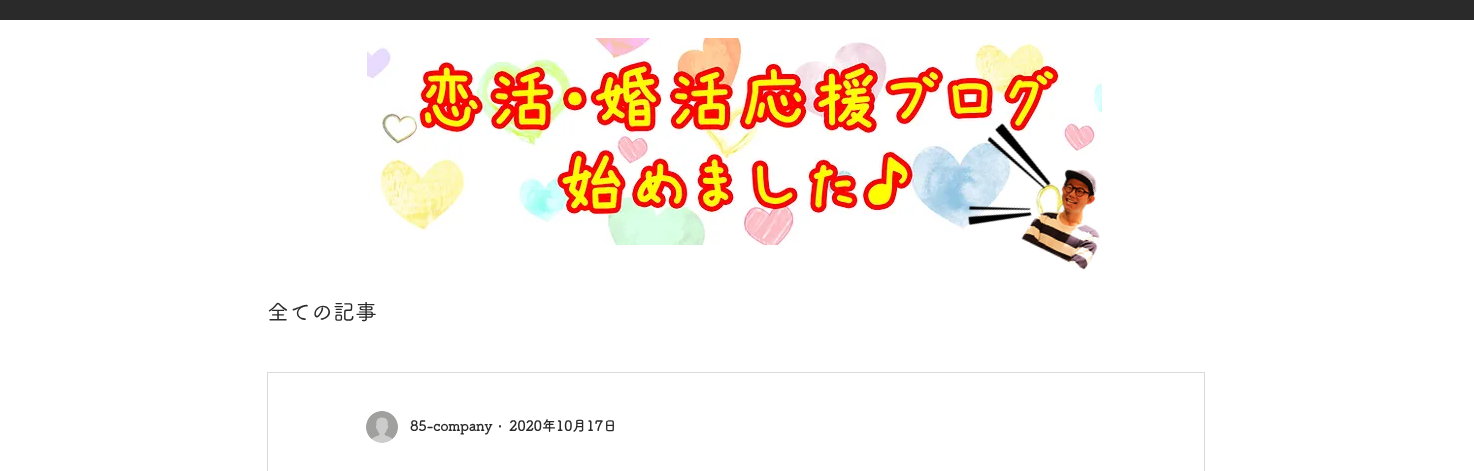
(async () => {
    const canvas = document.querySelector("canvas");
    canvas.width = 1474;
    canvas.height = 471;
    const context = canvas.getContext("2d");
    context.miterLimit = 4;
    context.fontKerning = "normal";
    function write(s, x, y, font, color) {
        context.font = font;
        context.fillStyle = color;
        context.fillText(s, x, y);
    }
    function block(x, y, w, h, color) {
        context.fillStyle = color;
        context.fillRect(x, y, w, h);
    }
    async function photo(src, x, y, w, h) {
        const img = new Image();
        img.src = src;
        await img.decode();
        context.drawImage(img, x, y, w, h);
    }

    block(0, 0, 1474, 471, "rgb(255, 255, 255)");
    block(0, 0, 1474, 20, "rgb(42, 42, 42)");
    await photo("media/1.png", 367, 38, 735, 207);
    await photo("media/2.png", 968, 123, 132, 147);
    write("全ての記事", 267, 320, "500 22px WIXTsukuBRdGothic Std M", "rgb(42, 42, 42)");
    context.strokeStyle = "rgb(217, 217, 217)";
    context.strokeRect(267.5, 372.5, 937, 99);
    await photo("media/3.png", 366, 411, 32, 32);
    write("85-company", 410, 431, "bold 14px WIXTsukuBRdGothic Std M", "rgb(42, 42, 42)");
    write("·", 498, 431, "bold 14px Liberation Sans", "rgb(42, 42, 42)");
    write("2020年10月17日", 509, 431, "bold 14px WIXTsukuBRdGothic Std M", "rgb(42, 42, 42)");
})();
